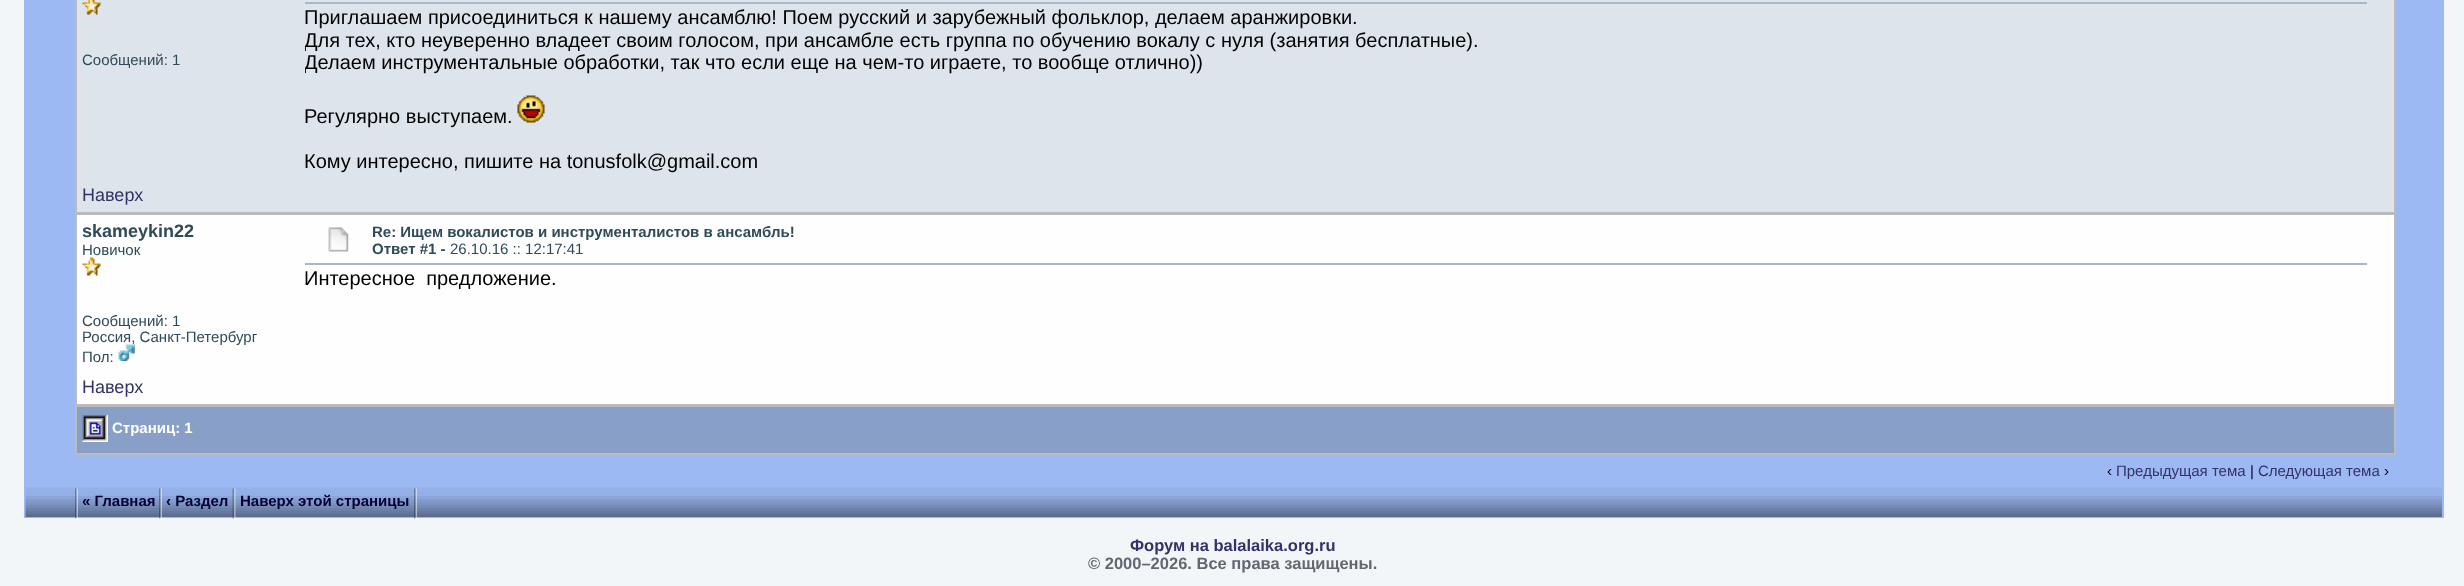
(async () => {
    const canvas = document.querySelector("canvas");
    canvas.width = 2464;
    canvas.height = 586;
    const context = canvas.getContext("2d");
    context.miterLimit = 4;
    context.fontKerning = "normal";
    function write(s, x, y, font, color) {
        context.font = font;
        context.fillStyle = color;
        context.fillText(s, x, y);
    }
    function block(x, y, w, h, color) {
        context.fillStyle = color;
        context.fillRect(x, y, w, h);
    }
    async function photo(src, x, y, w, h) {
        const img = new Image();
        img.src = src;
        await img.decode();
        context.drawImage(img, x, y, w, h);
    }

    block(0, 0, 2464, 586, "rgb(242, 246, 249)");
    block(24, 0, 2420, 518, "rgb(156, 185, 243)");
    block(75, 0, 2321, 455, "rgb(187, 187, 187)");
    block(77, 0, 2317, 179, "rgb(222, 228, 236)");
    await photo("media/1.png", 82, 0, 19, 15);
    write("Сообщений: 1", 82, 65, "15px Liberation Sans", "rgb(48, 75, 88)");
    block(305, 2, 2062, 2, "rgb(167, 184, 204)");
    write("Приглашаем присоединиться к нашему ансамблю! Поем русский и зарубежный фольклор, делаем аранжировки.", 304, 24, "20px Liberation Sans", "rgb(0, 0, 0)");
    context.save();
    context.beginPath();
    context.rect(305, 6, 2062, 167);
    context.clip();
    write("Для тех, кто неуверенно владеет своим голосом, при ансамбле есть группа по обучению вокалу с нуля (занятия бесплатные).", 304, 47, "20px Liberation Sans", "rgb(0, 0, 0)");
    write("Делаем инструментальные обработки, так что если еще на чем-то играете, то вообще отлично))", 304, 69, "20px Liberation Sans", "rgb(0, 0, 0)");
    context.restore();
    write("Регулярно выступаем.", 304, 123, "20px Liberation Sans", "rgb(0, 0, 0)");
    await photo("media/2.png", 517, 95, 28, 28);
    write("Кому интересно, пишите на tonusfolk@gmail.com", 304, 168, "20px Liberation Sans", "rgb(0, 0, 0)");
    block(77, 179, 2317, 33, "rgb(222, 228, 236)");
    write("Наверх", 82, 201, "18px Liberation Sans", "rgb(51, 51, 102)");
    block(77, 215, 2317, 156, "rgb(254, 254, 254)");
    write("skameykin22", 82, 237, "bold 18px Liberation Sans", "rgb(48, 75, 88)");
    write("Новичок", 82, 255, "15px Liberation Sans", "rgb(48, 75, 88)");
    await photo("media/3.png", 82, 257, 19, 19);
    write("Сообщений: 1", 82, 326, "15px Liberation Sans", "rgb(48, 75, 88)");
    write("Россия, Санкт-Петербург", 82, 342, "15px Liberation Sans", "rgb(48, 75, 88)");
    write("Пол:", 82, 362, "15px Liberation Sans", "rgb(48, 75, 88)");
    await photo("media/4.png", 118, 344, 17, 17);
    block(305, 263, 2062, 2, "rgb(167, 184, 204)");
    await photo("media/5.png", 328, 227, 21, 25);
    write("Re: Ищем вокалистов и инструменталистов в ансамбль!", 372, 237, "bold 15px Liberation Sans", "rgb(48, 75, 88)");
    write("Ответ #1 -", 372, 254, "bold 15px Liberation Sans", "rgb(48, 75, 88)");
    write("26.10.16 :: 12:17:41", 450, 254, "15px Liberation Sans", "rgb(48, 75, 88)");
    write("Интересное  предложение.", 304, 285, "20px Liberation Sans", "rgb(0, 0, 0)");
    block(77, 371, 2317, 33, "rgb(254, 254, 254)");
    write("Наверх", 82, 393, "18px Liberation Sans", "rgb(51, 51, 102)");
    block(77, 407, 2317, 46, "rgb(136, 160, 200)");
    await photo("media/6.png", 82, 415, 26, 27);
    write("Страниц: 1", 112, 433, "bold 15px Liberation Sans", "rgb(255, 255, 255)");
    write("‹", 2107, 476, "15px Liberation Sans", "rgb(0, 0, 51)");
    write("Предыдущая тема", 2116, 476, "15px Liberation Sans", "rgb(51, 51, 102)");
    write("|", 2250, 476, "15px Liberation Sans", "rgb(0, 0, 51)");
    write("Следующая тема", 2258, 476, "15px Liberation Sans", "rgb(51, 51, 102)");
    write("›", 2384, 476, "15px Liberation Sans", "rgb(0, 0, 51)");
    await photo("media/7.png", 25, 487, 2417, 30);
    await photo("media/8.png", 75, 488, 3, 32);
    write("« Главная", 82, 506, "bold 15px Liberation Sans", "rgb(0, 0, 51)");
    await photo("media/8.png", 159, 488, 3, 32);
    write("‹ Раздел", 166, 506, "bold 15px Liberation Sans", "rgb(0, 0, 51)");
    await photo("media/9.png", 232, 488, 4, 32);
    write("Наверх этой страницы", 240, 506, "bold 15px Liberation Sans", "rgb(0, 0, 51)");
    await photo("media/10.png", 414, 488, 3, 32);
    write("Форум на balalaika.org.ru", 1130, 551, "bold 16.5px Liberation Sans", "rgb(51, 51, 102)");
    write("© 2000–2026. Все права защищены.", 1088, 569, "bold 16.5px Liberation Sans", "rgb(98, 104, 111)");
})();
